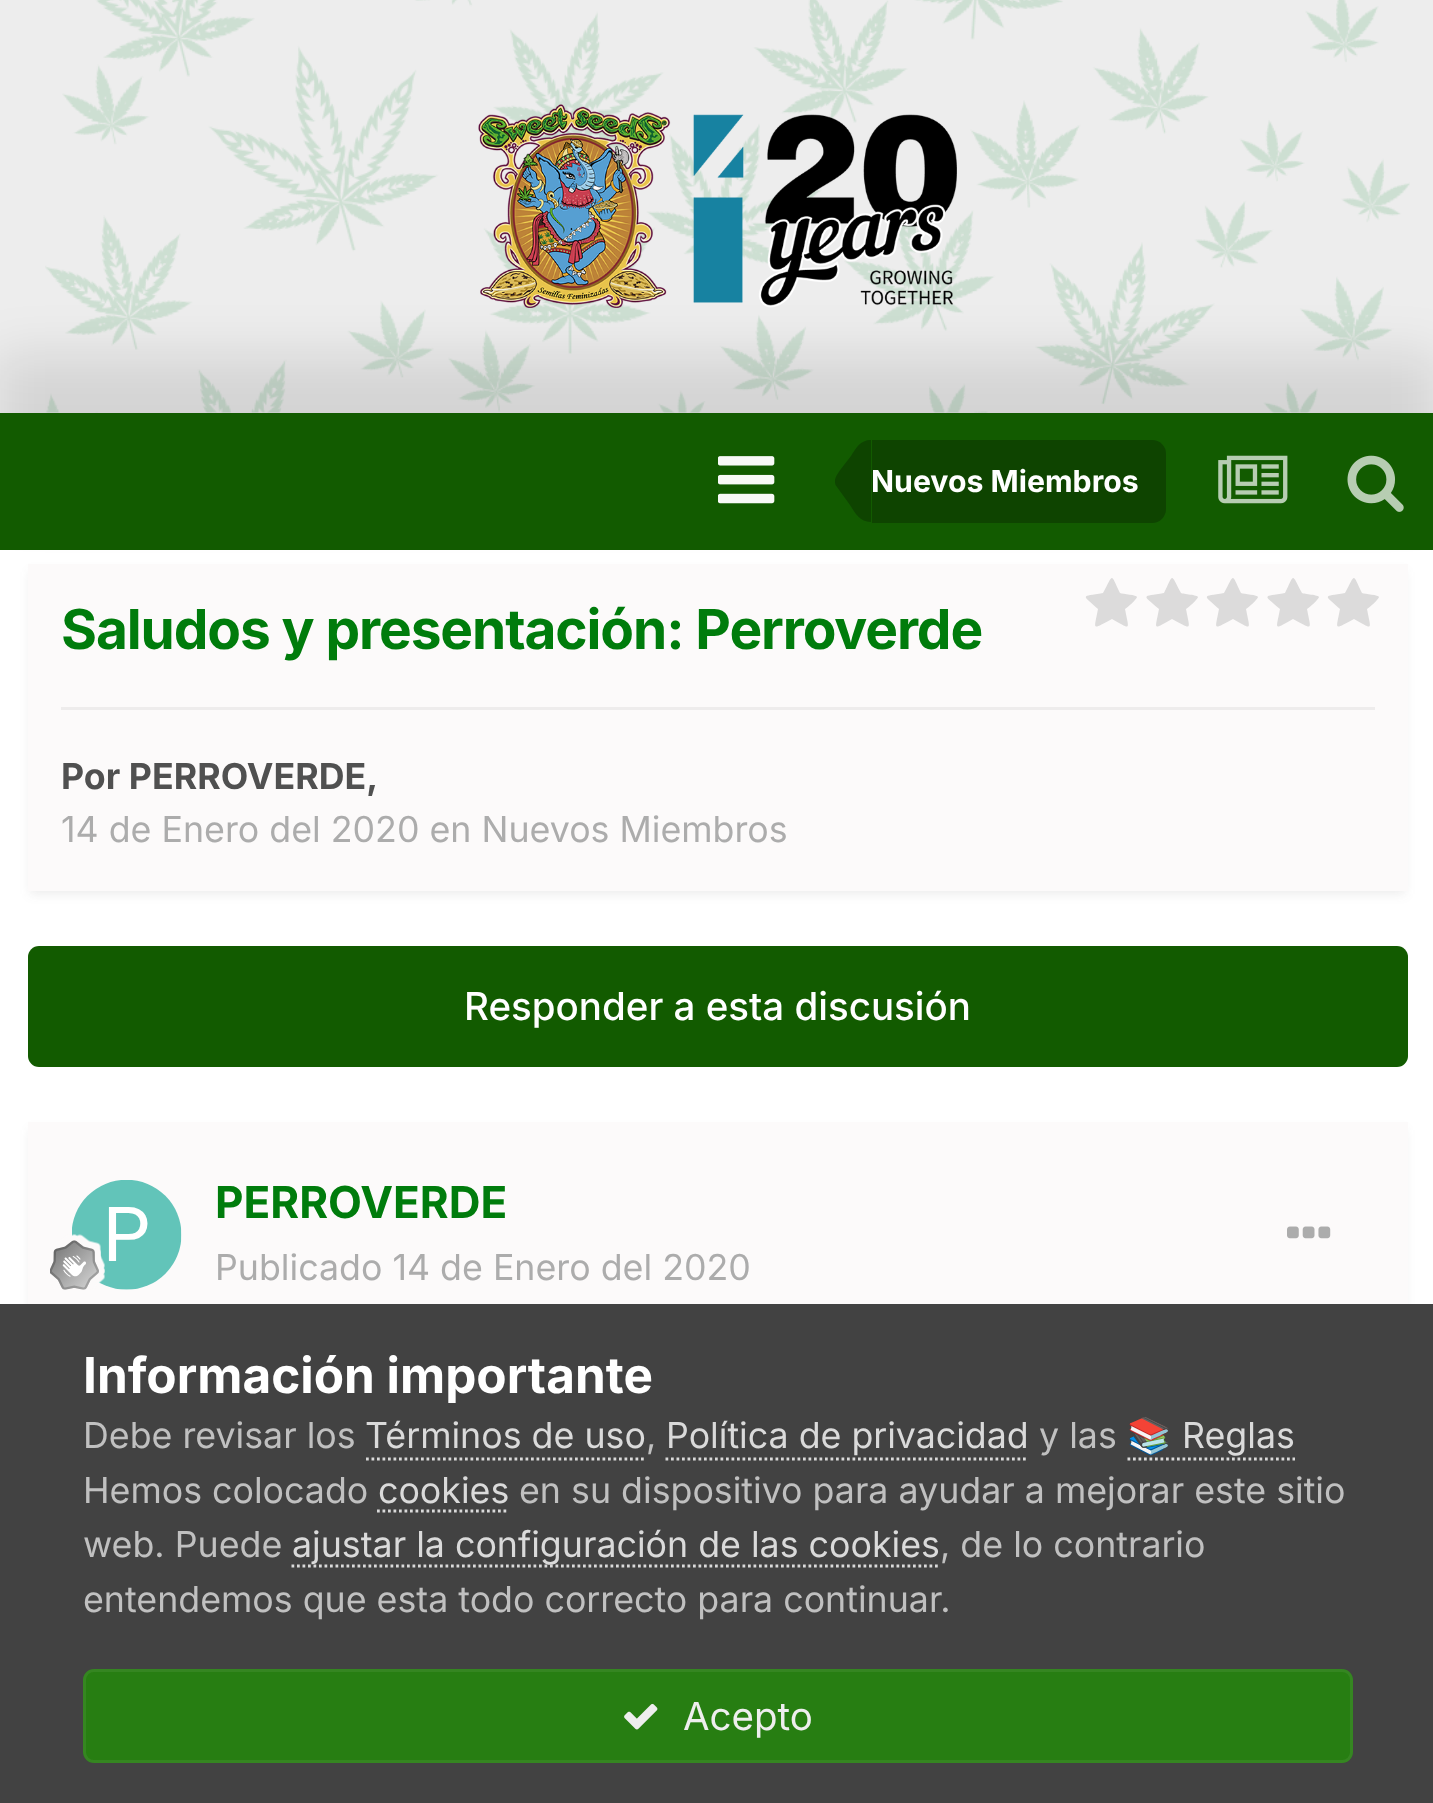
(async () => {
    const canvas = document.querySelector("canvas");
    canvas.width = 1433;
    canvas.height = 1803;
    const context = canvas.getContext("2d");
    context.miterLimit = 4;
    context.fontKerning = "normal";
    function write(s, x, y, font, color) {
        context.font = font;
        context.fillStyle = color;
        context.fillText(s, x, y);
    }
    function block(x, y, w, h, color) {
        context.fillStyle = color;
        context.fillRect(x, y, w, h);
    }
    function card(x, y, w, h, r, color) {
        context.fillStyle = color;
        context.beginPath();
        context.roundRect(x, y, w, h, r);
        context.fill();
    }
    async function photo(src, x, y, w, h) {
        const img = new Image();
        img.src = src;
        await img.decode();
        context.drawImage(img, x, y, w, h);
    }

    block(0, 0, 1433, 1803, "rgb(237, 237, 237)");
    await photo("media/1.png", 45, 0, 1365, 413);
    await photo("media/2.png", 478, 104, 479, 204);
    block(0, 550, 1433, 754, "rgb(255, 255, 255)");
    context.fillStyle = "rgba(66, 66, 66, 0.1)";
    context.filter = "blur(5.5px)";
    context.beginPath();
    context.rect(30, 572, 1375, 322);
    context.fill();
    context.filter = "none";
    block(28, 564, 1380, 327, "rgb(252, 250, 250)");
    context.fillStyle = "rgb(220, 219, 219)";
    context.beginPath();
    context.moveTo(1137, 597);
    context.bezierCurveTo(1137, 599, 1127, 608, 1125, 609);
    context.bezierCurveTo(1129, 631, 1132, 630, 1112, 619);
    context.bezierCurveTo(1091, 630, 1094, 631, 1098, 609);
    context.bezierCurveTo(1082, 594, 1080, 597, 1103, 593);
    context.bezierCurveTo(1114, 573, 1110, 573, 1120, 593);
    context.bezierCurveTo(1123, 594, 1137, 595, 1137, 597);
    context.closePath();
    context.fill();
    context.beginPath();
    context.moveTo(1198, 597);
    context.bezierCurveTo(1198, 599, 1188, 608, 1186, 609);
    context.bezierCurveTo(1190, 631, 1193, 630, 1172, 619);
    context.bezierCurveTo(1152, 630, 1155, 631, 1159, 609);
    context.bezierCurveTo(1142, 594, 1141, 597, 1164, 593);
    context.bezierCurveTo(1174, 573, 1170, 573, 1181, 593);
    context.bezierCurveTo(1183, 594, 1198, 595, 1198, 597);
    context.closePath();
    context.fill();
    context.beginPath();
    context.moveTo(1258, 597);
    context.bezierCurveTo(1258, 599, 1248, 608, 1246, 609);
    context.bezierCurveTo(1250, 631, 1253, 630, 1233, 619);
    context.bezierCurveTo(1212, 630, 1215, 631, 1219, 609);
    context.bezierCurveTo(1203, 594, 1201, 597, 1224, 593);
    context.bezierCurveTo(1235, 573, 1231, 573, 1241, 593);
    context.bezierCurveTo(1244, 594, 1258, 595, 1258, 597);
    context.closePath();
    context.fill();
    context.beginPath();
    context.moveTo(1319, 597);
    context.bezierCurveTo(1319, 599, 1309, 608, 1307, 609);
    context.bezierCurveTo(1311, 631, 1314, 630, 1293, 619);
    context.bezierCurveTo(1273, 630, 1276, 631, 1280, 609);
    context.bezierCurveTo(1263, 594, 1262, 597, 1285, 593);
    context.bezierCurveTo(1295, 573, 1291, 573, 1302, 593);
    context.bezierCurveTo(1304, 594, 1319, 595, 1319, 597);
    context.closePath();
    context.fill();
    context.beginPath();
    context.moveTo(1379, 597);
    context.bezierCurveTo(1379, 599, 1369, 608, 1367, 609);
    context.bezierCurveTo(1371, 631, 1374, 630, 1354, 619);
    context.bezierCurveTo(1333, 630, 1336, 631, 1340, 609);
    context.bezierCurveTo(1324, 594, 1322, 597, 1345, 593);
    context.bezierCurveTo(1356, 573, 1352, 573, 1362, 593);
    context.bezierCurveTo(1365, 594, 1379, 595, 1379, 597);
    context.closePath();
    context.fill();
    context.fillStyle = "rgba(0, 0, 0, 0.1)";
    context.filter = "blur(26px)";
    context.beginPath();
    context.rect(-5, 355, 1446, 148);
    context.fill();
    context.filter = "none";
    block(0, 413, 1433, 137, "rgb(18, 91, 0)");
    await photo("media/3.png", 718, 456, 57, 48);
    context.fillStyle = "rgb(14, 68, 0)";
    context.beginPath();
    context.roundRect(872, 440, 294, 83, [0, 14, 14, 0]);
    context.fill();
    context.beginPath();
    context.moveTo(850, 505);
    context.lineTo(837, 487);
    context.bezierCurveTo(835, 485, 835, 483, 835, 481);
    context.lineTo(871, 481);
    context.lineTo(871, 522);
    context.bezierCurveTo(860, 522, 855, 513, 850, 505);
    context.closePath();
    context.fill();
    context.beginPath();
    context.moveTo(871, 440);
    context.lineTo(871, 481);
    context.lineTo(835, 481);
    context.bezierCurveTo(835, 476, 841, 469, 844, 465);
    context.lineTo(851, 456);
    context.bezierCurveTo(856, 448, 860, 440, 871, 440);
    context.closePath();
    context.fill();
    write("Nuevos Miembros", 871, 492, "bold 30.25px Inter", "rgb(255, 255, 255)");
    await photo("media/4.png", 1218, 455, 70, 49);
    await photo("media/5.png", 1347, 455, 57, 57);
    context.letterSpacing = "-1.1px";
    write("Saludos y presentación: Perroverde", 61, 649, "bold 55px Inter", "rgb(0, 124, 12)");
    block(61, 707, 1314, 3, "rgb(238, 236, 236)");
    context.letterSpacing = "0px";
    write("Por PERROVERDE,", 61, 789, "bold 35.75px Inter", "rgb(80, 80, 80)");
    write("14 de Enero del 2020 en Nuevos Miembros", 61, 842, "35.75px Inter", "rgb(172, 172, 172)");
    card(28, 946, 1380, 121, 11, "rgb(18, 91, 0)");
    write("Responder a esta discusión", 464, 1020, "500 38.5px Inter", "rgb(255, 255, 255)");
    context.fillStyle = "rgba(66, 66, 66, 0.1)";
    context.filter = "blur(5.5px)";
    context.beginPath();
    context.rect(30, 1130, 1375, 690);
    context.fill();
    context.filter = "none";
    block(28, 1122, 1380, 182, "rgb(252, 250, 250)");
    await photo("media/6.png", 72, 1180, 110, 110);
    await photo("media/7.png", 50, 1234, 55, 56);
    write("PERROVERDE", 215, 1218, "bold 44px Inter", "rgb(0, 124, 12)");
    write("Publicado 14 de Enero del 2020", 215, 1280, "35.75px Inter", "rgb(172, 172, 172)");
    await photo("media/8.png", 1287, 1226, 44, 13);
    block(0, 1304, 1433, 499, "rgb(66, 66, 66)");
    write("Información importante", 83, 1393, "bold 49.5px Inter", "rgb(255, 255, 255)");
    write("Debe revisar los", 83, 1448, "35.75px Inter", "rgb(192, 192, 192)");
    write("Términos de uso", 365, 1448, "35.75px Inter", "rgb(218, 218, 218)");
    context.beginPath();
    context.moveTo(366, 1459);
    context.lineTo(646, 1459);
    context.strokeStyle = "rgb(218, 218, 218)";
    context.lineWidth = 2.8;
    context.setLineDash([2.75, 2.75]);
    context.stroke();
    write(",", 646, 1448, "35.75px Inter", "rgb(192, 192, 192)");
    write("Política de privacidad", 666, 1448, "35.75px Inter", "rgb(218, 218, 218)");
    context.beginPath();
    context.moveTo(665.5, 1459);
    context.lineTo(1028.5, 1459);
    context.stroke();
    write("y las", 1039, 1448, "35.75px Inter", "rgb(192, 192, 192)");
    write("📚", 1127, 1448, "35.75px Noto Color Emoji", "rgb(218, 218, 218)");
    write("Reglas", 1182, 1448, "35.75px Inter", "rgb(218, 218, 218)");
    context.beginPath();
    context.moveTo(1127.5, 1459);
    context.lineTo(1295, 1459);
    context.stroke();
    write("Hemos colocado", 83, 1503, "35.75px Inter", "rgb(192, 192, 192)");
    write("cookies", 378, 1503, "35.75px Inter", "rgb(218, 218, 218)");
    context.beginPath();
    context.moveTo(377, 1511);
    context.lineTo(509, 1511);
    context.stroke();
    write("en su dispositivo para ayudar a mejorar este sitio", 519, 1503, "35.75px Inter", "rgb(192, 192, 192)");
    write("web. Puede", 83, 1557, "35.75px Inter", "rgb(192, 192, 192)");
    context.beginPath();
    context.moveTo(291.5, 1566);
    context.lineTo(940.5, 1566);
    context.stroke();
    write("ajustar la configuración de las cookies", 292, 1557, "35.75px Inter", "rgb(218, 218, 218)");
    write(", de lo contrario", 940, 1557, "35.75px Inter", "rgb(192, 192, 192)");
    write("entendemos que esta todo correcto para continuar.", 83, 1612, "35.75px Inter", "rgb(192, 192, 192)");
    card(83, 1669, 1270, 94, 11, "rgb(39, 126, 18)");
    context.beginPath();
    context.roundRect(84.5, 1670.5, 1267, 91, 9.5);
    context.strokeStyle = "rgba(238, 238, 238, 0.07)";
    context.lineWidth = 3;
    context.setLineDash([]);
    context.stroke();
    await photo("media/9.png", 624, 1703, 34, 27);
    write("Acepto", 683, 1730, "38.5px Inter", "rgb(238, 238, 238)");
})();
